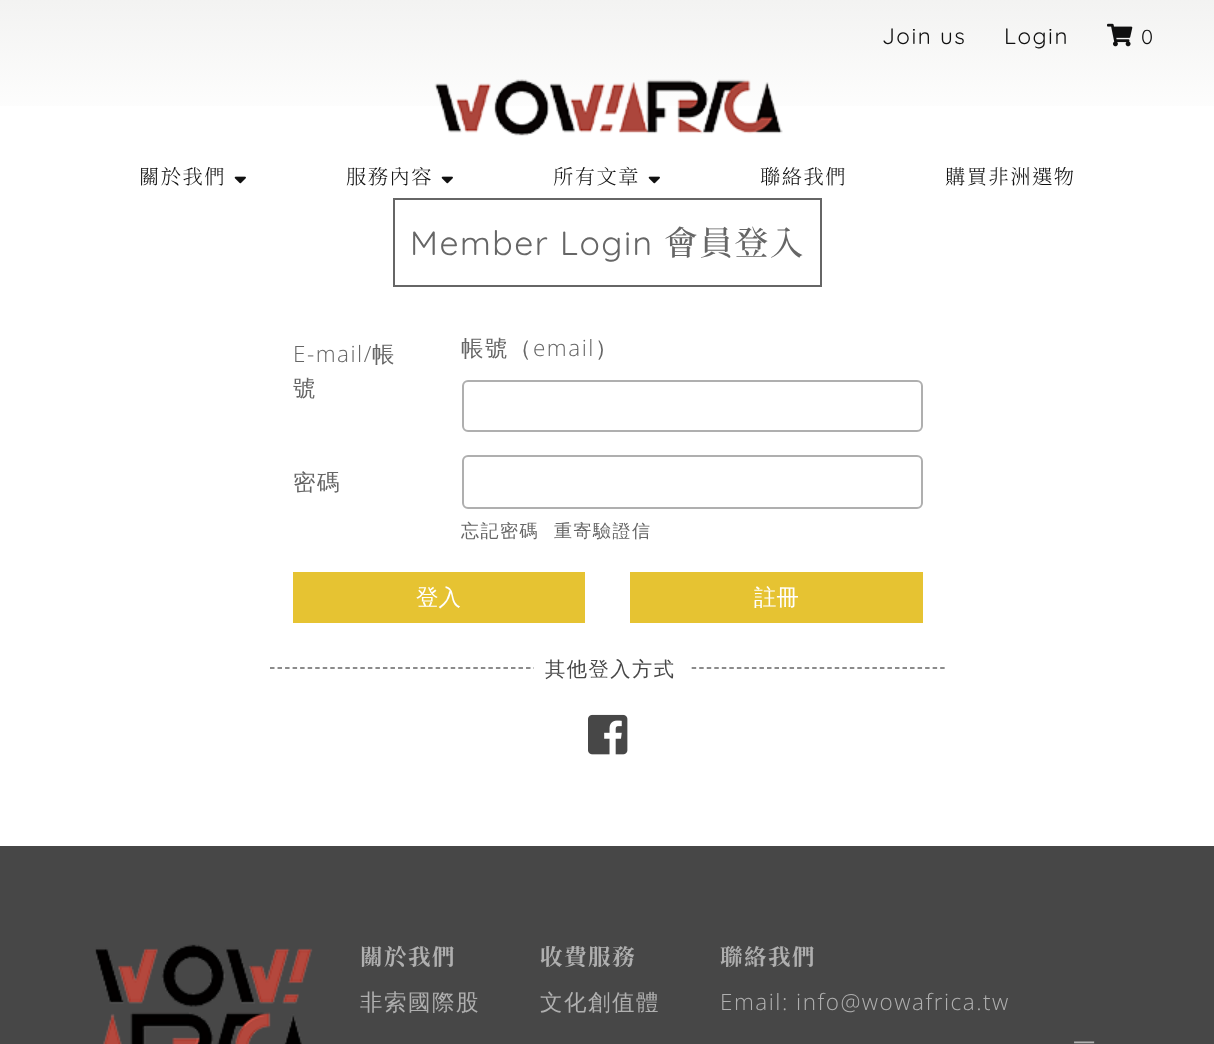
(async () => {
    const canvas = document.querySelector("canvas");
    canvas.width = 1214;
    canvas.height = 1044;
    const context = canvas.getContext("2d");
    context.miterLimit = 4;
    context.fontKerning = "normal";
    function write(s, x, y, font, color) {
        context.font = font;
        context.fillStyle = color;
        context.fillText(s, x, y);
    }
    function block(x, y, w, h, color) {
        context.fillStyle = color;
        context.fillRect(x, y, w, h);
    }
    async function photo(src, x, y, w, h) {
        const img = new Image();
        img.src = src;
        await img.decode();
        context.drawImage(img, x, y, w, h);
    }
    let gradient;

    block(0, 0, 1214, 1044, "rgb(255, 255, 255)");
    gradient = context.createLinearGradient(608, -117, 608, 131);
    gradient.addColorStop(0, "rgb(232, 232, 230)");
    gradient.addColorStop(1, "rgb(255, 255, 255)");
    context.fillStyle = gradient;
    context.fillRect(0, 0, 1214, 106);
    context.letterSpacing = "1.5px";
    write("Join us", 882, 44, "300 22.5px Quicksand", "rgb(16, 16, 16)");
    write("Login", 1004, 44, "300 22.5px Quicksand", "rgb(16, 16, 16)");
    await photo("media/1.png", 1107, 23, 26, 24);
    write("0", 1141, 44, "300 20.25px Quicksand", "rgb(16, 16, 16)");
    await photo("media/2.png", 434, 79, 349, 57);
    write("關於我們", 139, 184, "300 20.25px Noto Serif TC", "rgb(16, 16, 16)");
    await photo("media/3.png", 234, 176, 12, 8);
    write("服務內容", 346, 184, "300 20.25px Noto Serif TC", "rgb(16, 16, 16)");
    await photo("media/3.png", 441, 176, 12, 8);
    write("所有文章", 553, 184, "300 20.25px Noto Serif TC", "rgb(16, 16, 16)");
    await photo("media/3.png", 648, 176, 12, 8);
    write("聯絡我們", 760, 184, "300 20.25px Noto Serif TC", "rgb(16, 16, 16)");
    write("購買非洲選物", 945, 184, "300 20.25px Noto Serif TC", "rgb(16, 16, 16)");
    context.strokeStyle = "rgb(102, 102, 102)";
    context.lineWidth = 2;
    context.strokeRect(394, 199, 427, 87);
    write("Member Login", 410, 255, "300 33.75px Quicksand", "rgb(102, 102, 102)");
    write("會員登入", 664, 255, "500 33.75px Noto Serif TC", "rgb(102, 102, 102)");
    write("E-mail/", 293, 362, "300 22.5px Open Sans", "rgb(102, 102, 102)");
    write("帳", 372, 362, "500 22.5px WenQuanYi Zen Hei", "rgb(102, 102, 102)");
    write("號", 293, 396, "500 22.5px WenQuanYi Zen Hei", "rgb(102, 102, 102)");
    write("帳號（", 461, 356, "500 22.5px WenQuanYi Zen Hei", "rgb(102, 102, 102)");
    write("email", 533, 356, "300 22.5px Open Sans", "rgb(102, 102, 102)");
    write("）", 595, 356, "500 22.5px WenQuanYi Zen Hei", "rgb(102, 102, 102)");
    context.beginPath();
    context.roundRect(463, 381, 459, 50, 5);
    context.strokeStyle = "rgb(175, 175, 175)";
    context.stroke();
    write("密碼", 293, 490, "500 22.5px WenQuanYi Zen Hei", "rgb(102, 102, 102)");
    context.beginPath();
    context.roundRect(463, 456, 459, 52, 5);
    context.stroke();
    write("忘記密碼", 461, 537, "500 18px WenQuanYi Zen Hei", "rgb(102, 102, 102)");
    write("重寄驗證信", 554, 537, "500 18px WenQuanYi Zen Hei", "rgb(102, 102, 102)");
    block(293, 572, 292, 51, "rgb(230, 195, 50)");
    context.letterSpacing = "0px";
    write("登入", 416, 605, "500 22.5px WenQuanYi Zen Hei", "rgb(255, 255, 255)");
    block(630, 572, 293, 51, "rgb(230, 195, 50)");
    write("註冊", 754, 605, "500 22.5px WenQuanYi Zen Hei", "rgb(255, 255, 255)");
    context.beginPath();
    context.moveTo(270, 668);
    context.lineTo(945, 668);
    context.strokeStyle = "rgb(102, 102, 102)";
    context.lineWidth = 1.5;
    context.setLineDash([4.5, 3.03]);
    context.stroke();
    block(534, 667, 155, 2, "rgb(255, 255, 255)");
    context.letterSpacing = "1.5px";
    write("其他登入方式", 545, 676, "500 20.25px WenQuanYi Zen Hei", "rgb(71, 71, 71)");
    await photo("media/4.png", 588, 714, 40, 41);
    block(0, 846, 1214, 198, "rgb(71, 71, 71)");
    await photo("media/5.png", 95, 944, 218, 100);
    write("關於我們", 360, 965, "bold 22.5px Noto Serif TC", "rgb(175, 175, 175)");
    write("非索國際股", 360, 1010, "500 22.5px WenQuanYi Zen Hei", "rgb(175, 175, 175)");
    write("收費服務", 540, 965, "bold 22.5px Noto Serif TC", "rgb(175, 175, 175)");
    write("文化創值體", 540, 1010, "500 22.5px WenQuanYi Zen Hei", "rgb(175, 175, 175)");
    write("聯絡我們", 720, 965, "bold 22.5px Noto Serif TC", "rgb(175, 175, 175)");
    write("Email: info@wowafrica.tw", 720, 1010, "300 22.5px Open Sans", "rgb(175, 175, 175)");
    write("一", 1073, 1051, "500 22.5px WenQuanYi Zen Hei", "rgb(175, 175, 175)");
})();
